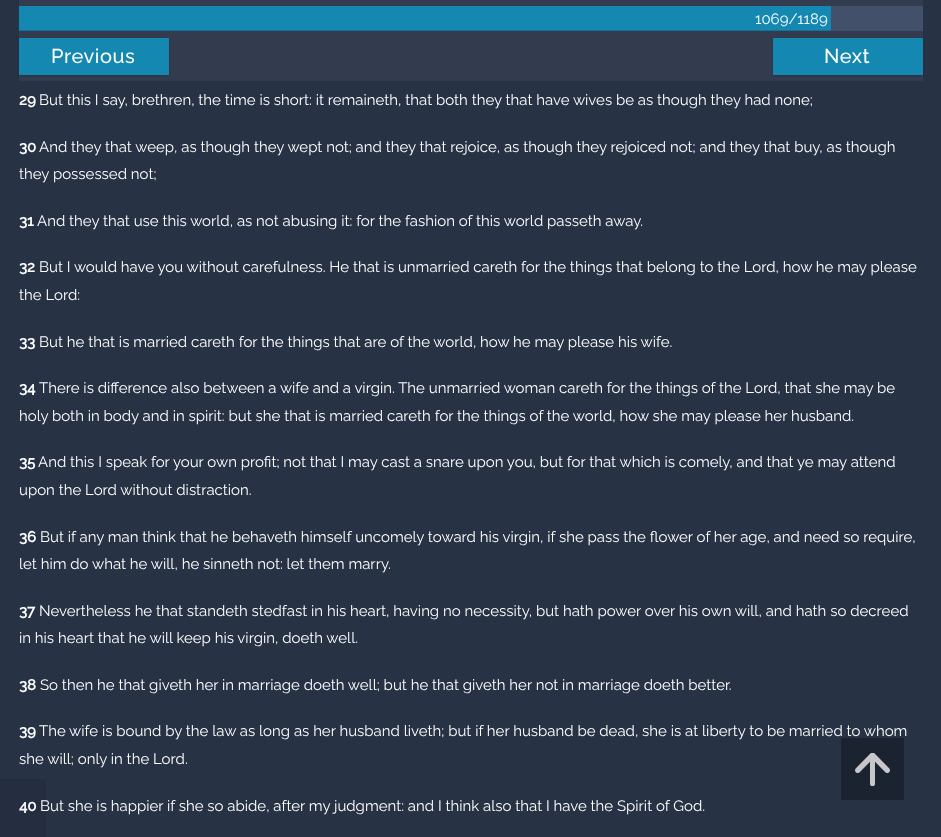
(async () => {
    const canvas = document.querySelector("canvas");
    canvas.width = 941;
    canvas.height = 837;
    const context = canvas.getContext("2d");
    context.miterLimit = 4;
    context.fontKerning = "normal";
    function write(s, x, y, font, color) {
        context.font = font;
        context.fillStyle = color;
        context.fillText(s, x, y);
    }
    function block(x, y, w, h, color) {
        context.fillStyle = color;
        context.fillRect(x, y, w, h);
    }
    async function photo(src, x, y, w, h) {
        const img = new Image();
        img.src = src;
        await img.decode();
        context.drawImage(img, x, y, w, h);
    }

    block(0, 0, 941, 837, "rgb(39, 50, 69)");
    block(0, 779, 46, 58, "rgb(37, 45, 64)");
    block(19, 0, 904, 81, "rgb(50, 60, 78)");
    block(831, 6, 92, 25, "rgb(67, 80, 105)");
    block(19, 6, 812, 24, "rgb(21, 136, 177)");
    block(19, 30, 812, 1, "rgb(18, 116, 150)");
    write("1069/1189", 755, 24, "15px Raleway", "rgb(255, 255, 255)");
    context.fillStyle = "rgba(0, 0, 0, 0.15)";
    context.filter = "blur(1px)";
    context.beginPath();
    context.rect(19, 39, 150, 37);
    context.fill();
    context.filter = "none";
    block(19, 38, 150, 37, "rgb(21, 136, 177)");
    context.letterSpacing = "0.5px";
    write("Previous", 51, 63, "500 20px Raleway", "rgb(255, 255, 255)");
    context.fillStyle = "rgba(0, 0, 0, 0.15)";
    context.filter = "blur(1px)";
    context.beginPath();
    context.rect(773, 39, 150, 37);
    context.fill();
    context.filter = "none";
    block(773, 38, 150, 37, "rgb(21, 136, 177)");
    write("Next", 824, 63, "500 20px Raleway", "rgb(255, 255, 255)");
    context.letterSpacing = "0px";
    write("29", 19, 105, "bold 15px Raleway", "rgb(255, 255, 255)");
    write("But this I say, brethren, the time is short: it remaineth, that both they that have wives be as though they had none;", 39, 105, "15px Raleway", "rgb(255, 255, 255)");
    write("30", 19, 152, "bold 15px Raleway", "rgb(255, 255, 255)");
    write("And they that weep, as though they wept not; and they that rejoice, as though they rejoiced not; and they that buy, as though", 39, 152, "15px Raleway", "rgb(255, 255, 255)");
    write("they possessed not;", 19, 179, "15px Raleway", "rgb(255, 255, 255)");
    write("31", 19, 226, "bold 15px Raleway", "rgb(255, 255, 255)");
    write("And they that use this world, as not abusing it: for the fashion of this world passeth away.", 37, 226, "15px Raleway", "rgb(255, 255, 255)");
    write("32", 19, 272, "bold 15px Raleway", "rgb(255, 255, 255)");
    write("But I would have you without carefulness. He that is unmarried careth for the things that belong to the Lord, how he may please", 39, 272, "15px Raleway", "rgb(255, 255, 255)");
    write("the Lord:", 19, 300, "15px Raleway", "rgb(255, 255, 255)");
    write("33", 19, 347, "bold 15px Raleway", "rgb(255, 255, 255)");
    write("But he that is married careth for the things that are of the world, how he may please his wife.", 39, 347, "15px Raleway", "rgb(255, 255, 255)");
    write("34", 19, 393, "bold 15px Raleway", "rgb(255, 255, 255)");
    write("There is difference also between a wife and a virgin. The unmarried woman careth for the things of the Lord, that she may be", 39, 393, "15px Raleway", "rgb(255, 255, 255)");
    write("holy both in body and in spirit: but she that is married careth for the things of the world, how she may please her husband.", 19, 421, "15px Raleway", "rgb(255, 255, 255)");
    write("35", 19, 467, "bold 15px Raleway", "rgb(255, 255, 255)");
    write("And this I speak for your own profit; not that I may cast a snare upon you, but for that which is comely, and that ye may attend", 38, 467, "15px Raleway", "rgb(255, 255, 255)");
    write("upon the Lord without distraction.", 19, 495, "15px Raleway", "rgb(255, 255, 255)");
    write("36", 19, 542, "bold 15px Raleway", "rgb(255, 255, 255)");
    write("But if any man think that he behaveth himself uncomely toward his virgin, if she pass the flower of her age, and need so require,", 40, 542, "15px Raleway", "rgb(255, 255, 255)");
    write("let him do what he will, he sinneth not: let them marry.", 19, 569, "15px Raleway", "rgb(255, 255, 255)");
    write("37", 19, 616, "bold 15px Raleway", "rgb(255, 255, 255)");
    write("Nevertheless he that standeth stedfast in his heart, having no necessity, but hath power over his own will, and hath so decreed", 39, 616, "15px Raleway", "rgb(255, 255, 255)");
    write("in his heart that he will keep his virgin, doeth well.", 19, 643, "15px Raleway", "rgb(255, 255, 255)");
    write("38", 19, 690, "bold 15px Raleway", "rgb(255, 255, 255)");
    write("So then he that giveth her in marriage doeth well; but he that giveth her not in marriage doeth better.", 40, 690, "15px Raleway", "rgb(255, 255, 255)");
    write("39", 19, 736, "bold 15px Raleway", "rgb(255, 255, 255)");
    write("The wife is bound by the law as long as her husband liveth; but if her husband be dead, she is at liberty to be married to whom", 39, 736, "15px Raleway", "rgb(255, 255, 255)");
    write("she will; only in the Lord.", 19, 764, "15px Raleway", "rgb(255, 255, 255)");
    write("40", 19, 811, "bold 15px Raleway", "rgb(255, 255, 255)");
    write("But she is happier if she so abide, after my judgment: and I think also that I have the Spirit of God.", 40, 811, "15px Raleway", "rgb(255, 255, 255)");
    block(841, 738, 63, 62, "rgb(27, 34, 48)");
    await photo("media/1.png", 855, 753, 35, 33);
})();
